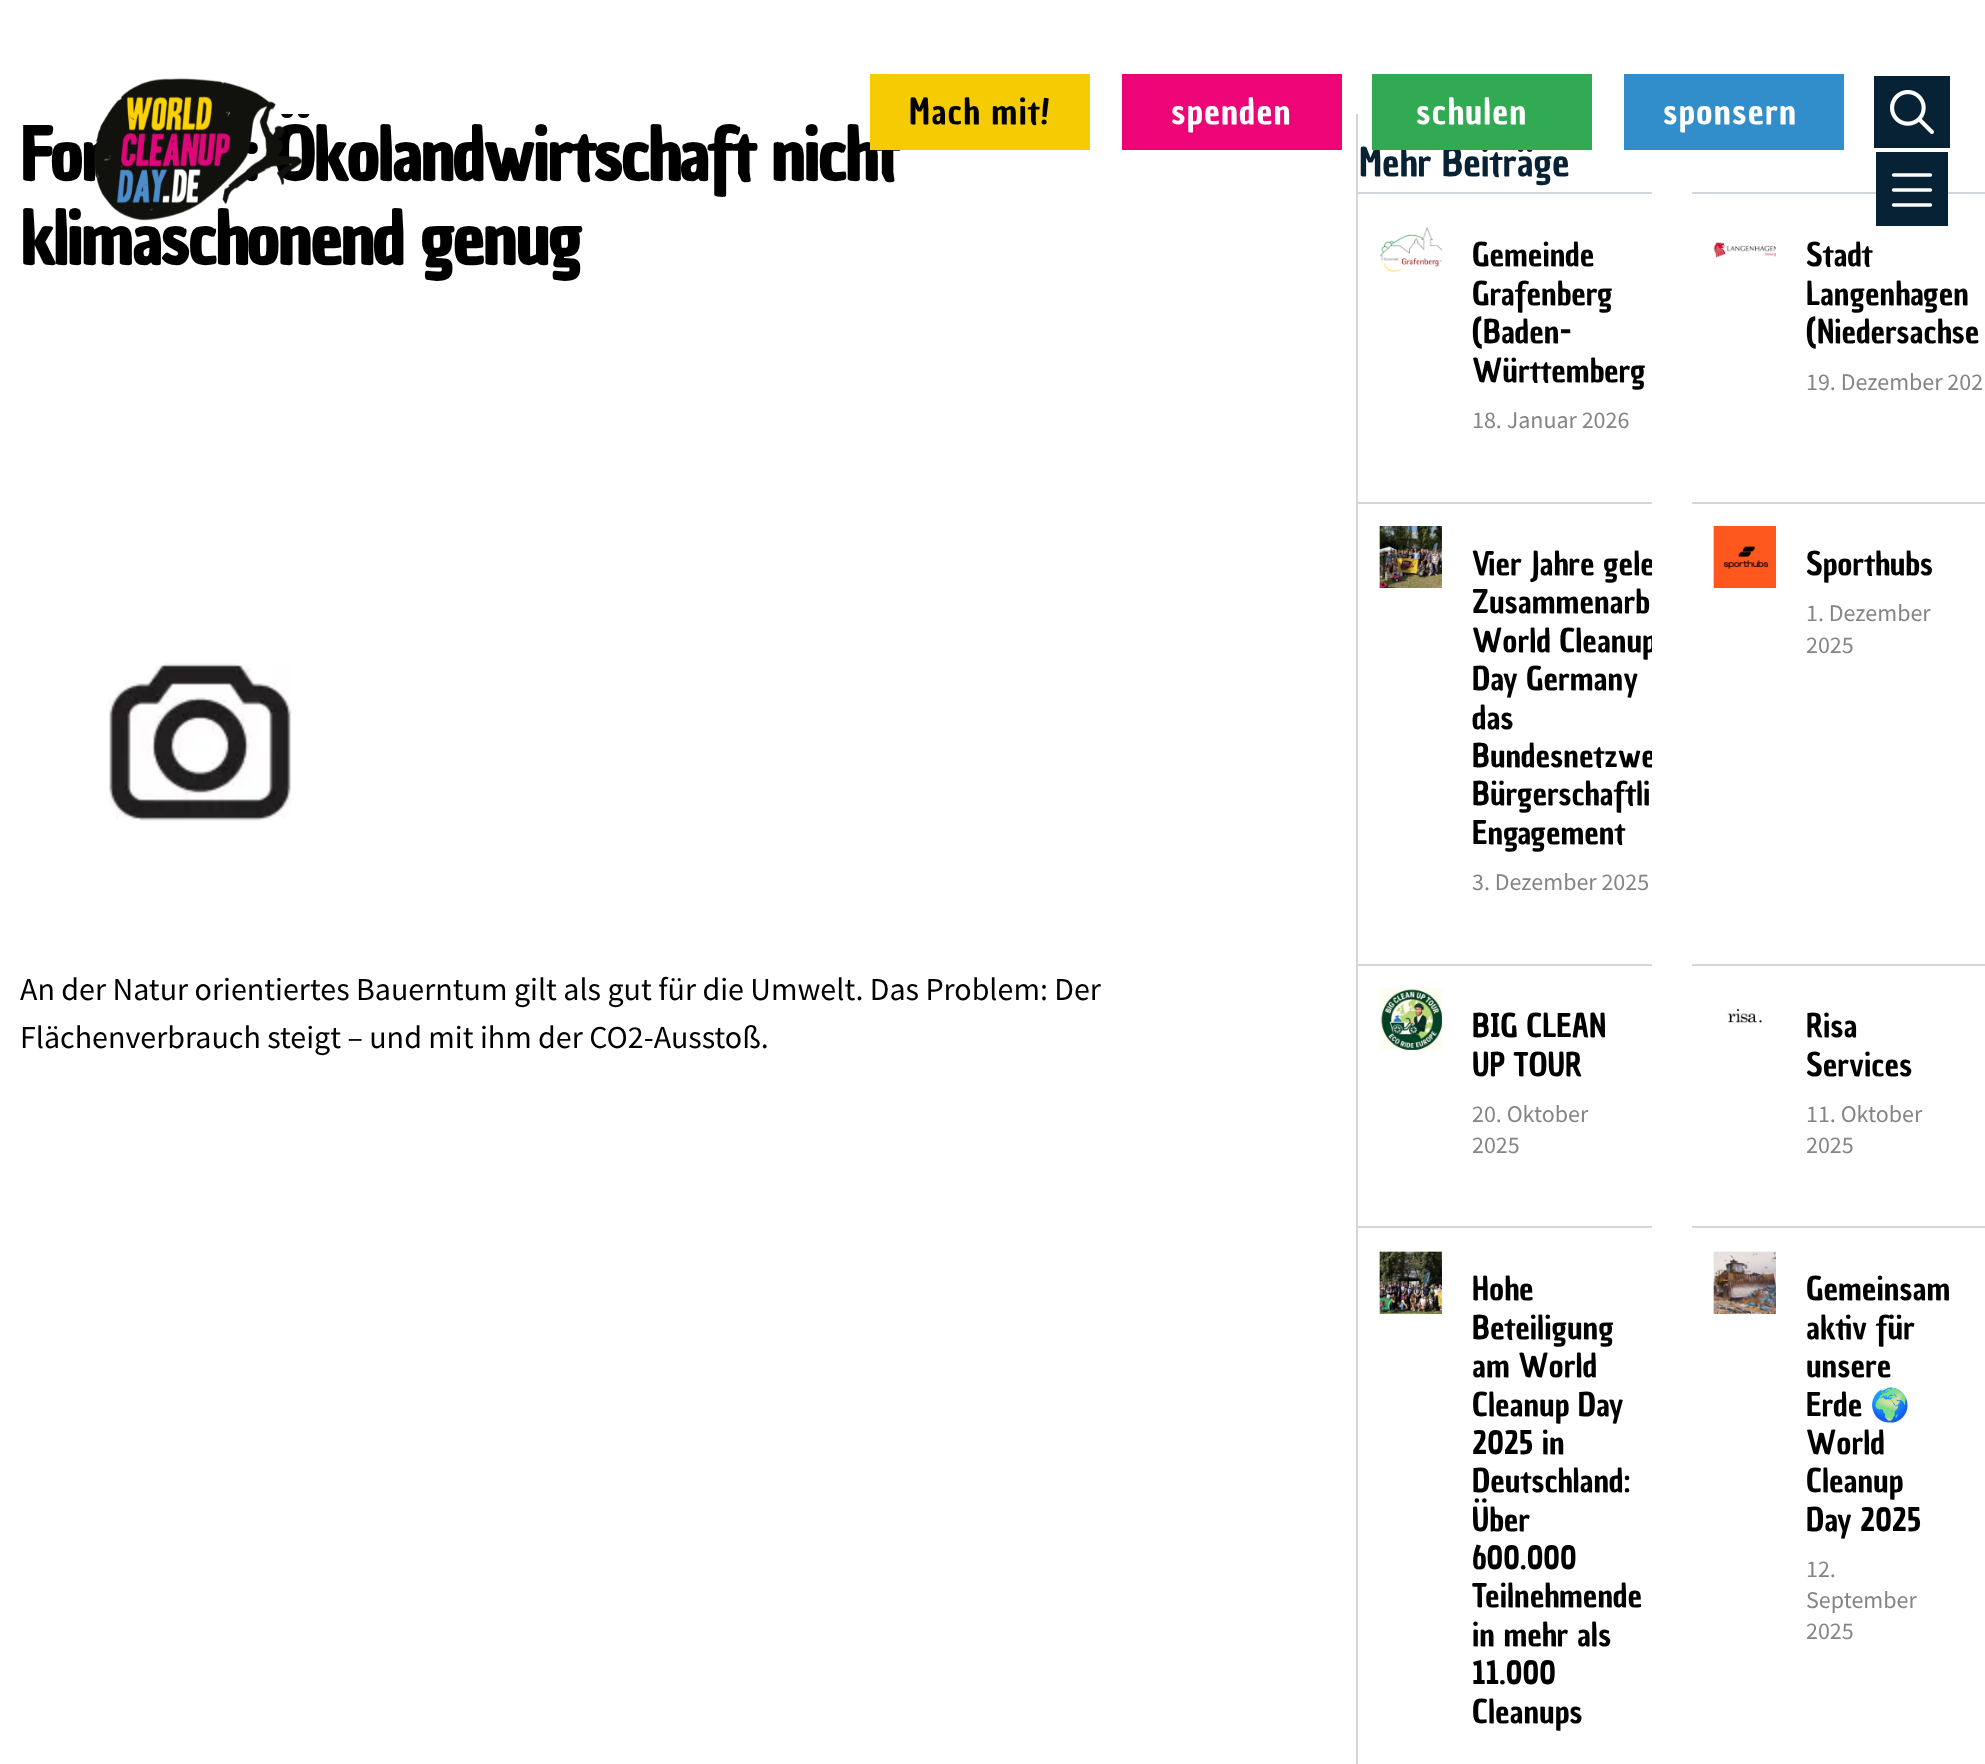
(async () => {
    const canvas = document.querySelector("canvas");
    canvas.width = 1985;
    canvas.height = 1764;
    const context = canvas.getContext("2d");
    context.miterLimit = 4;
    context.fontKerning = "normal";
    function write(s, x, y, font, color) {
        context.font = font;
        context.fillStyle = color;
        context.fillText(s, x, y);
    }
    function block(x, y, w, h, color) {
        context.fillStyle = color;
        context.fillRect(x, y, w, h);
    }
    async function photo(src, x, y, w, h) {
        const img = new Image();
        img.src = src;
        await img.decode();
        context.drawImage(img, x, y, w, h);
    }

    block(0, 0, 1985, 1764, "rgb(255, 255, 255)");
    context.letterSpacing = "-1.8px";
    write("For", 20, 180, "bold 70.5px Chau Philomene One", "rgb(0, 0, 0)");
    context.save();
    context.beginPath();
    context.rect(0, 114, 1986, 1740);
    context.clip();
    write(": Ökolandwirtschaft nicht", 243, 180, "bold 70.5px Chau Philomene One", "rgb(0, 0, 0)");
    context.restore();
    write("klimaschonend genug", 20, 264, "bold 70.5px Chau Philomene One", "rgb(0, 0, 0)");
    await photo("media/1.png", 94, 78, 208, 143);
    block(870, 74, 220, 76, "rgb(245, 204, 4)");
    context.letterSpacing = "1.25px";
    write("Mach mit!", 909, 124, "35px Chau Philomene One", "rgb(0, 0, 0)");
    block(1122, 74, 220, 76, "rgb(237, 5, 119)");
    write("spenden", 1171, 124, "35px Chau Philomene One", "rgb(255, 255, 255)");
    context.letterSpacing = "0px";
    write("Mehr Beiträge", 1359, 176, "38.5px Chau Philomene One", "rgb(7, 34, 53)");
    block(1372, 74, 220, 76, "rgb(49, 170, 83)");
    context.letterSpacing = "1.25px";
    write("schulen", 1416, 124, "35px Chau Philomene One", "rgb(255, 255, 255)");
    block(1624, 74, 220, 76, "rgb(50, 142, 203)");
    write("sponsern", 1663, 124, "35px Chau Philomene One", "rgb(255, 255, 255)");
    block(1874, 76, 76, 72, "rgb(7, 34, 53)");
    await photo("media/2.png", 1890, 90, 44, 44);
    block(1692, 192, 293, 2, "rgb(210, 215, 219)");
    block(1876, 152, 72, 74, "rgb(7, 34, 53)");
    context.beginPath();
    context.moveTo(1893.5, 205);
    context.lineTo(1930.5, 205);
    context.moveTo(1893.5, 175);
    context.lineTo(1930.5, 175);
    context.moveTo(1893.5, 190);
    context.lineTo(1930.5, 190);
    context.strokeStyle = "rgb(255, 255, 255)";
    context.lineWidth = 3.3;
    context.lineCap = "round";
    context.lineJoin = "round";
    context.stroke();
    await photo("media/3.png", 108, 663, 184, 158);
    context.letterSpacing = "0px";
    write("An der Natur orientiertes Bauerntum gilt als gut für die Umwelt. Das Problem: Der", 20, 1000, "32px Source Sans Pro", "rgb(0, 0, 0)");
    write("Flächenverbrauch steigt – und mit ihm der CO2-Ausstoß.", 20, 1048, "32px Source Sans Pro", "rgb(0, 0, 0)");
    block(1356, 114, 2, 1650, "rgb(210, 215, 219)");
    block(1358, 192, 294, 2, "rgb(210, 215, 219)");
    await photo("media/4.png", 1379, 227, 63, 45);
    write("Gemeinde", 1472, 266, "32px Chau Philomene One", "rgb(0, 0, 0)");
    write("Grafenberg", 1472, 305, "32px Chau Philomene One", "rgb(0, 0, 0)");
    write("(Baden-", 1472, 343, "32px Chau Philomene One", "rgb(0, 0, 0)");
    write("Württemberg", 1472, 382, "32px Chau Philomene One", "rgb(0, 0, 0)");
    write("18. Januar 2026", 1472, 428, "24px Source Sans Pro", "rgb(133, 133, 133)");
    await photo("media/5.png", 1713, 242, 63, 16);
    write("Stadt", 1806, 266, "32px Chau Philomene One", "rgb(0, 0, 0)");
    write("Langenhagen", 1806, 305, "32px Chau Philomene One", "rgb(0, 0, 0)");
    write("(Niedersachse", 1806, 343, "32px Chau Philomene One", "rgb(0, 0, 0)");
    write("19. Dezember 202", 1806, 390, "24px Source Sans Pro", "rgb(133, 133, 133)");
    block(1358, 502, 294, 2, "rgb(210, 215, 219)");
    await photo("media/6.png", 1379, 526, 63, 62);
    context.save();
    context.beginPath();
    context.rect(1358, 504, 294, 440);
    context.clip();
    write("Vier Jahre gele", 1472, 575, "32px Chau Philomene One", "rgb(0, 0, 0)");
    context.restore();
    write("Zusammenarb", 1472, 613, "32px Chau Philomene One", "rgb(0, 0, 0)");
    context.save();
    context.beginPath();
    context.rect(1358, 504, 294, 440);
    context.clip();
    write("World Cleanup", 1472, 652, "32px Chau Philomene One", "rgb(0, 0, 0)");
    context.restore();
    write("Day Germany", 1472, 690, "32px Chau Philomene One", "rgb(0, 0, 0)");
    write("das", 1472, 729, "32px Chau Philomene One", "rgb(0, 0, 0)");
    context.save();
    context.beginPath();
    context.rect(1358, 504, 294, 440);
    context.clip();
    write("Bundesnetzwe", 1472, 767, "32px Chau Philomene One", "rgb(0, 0, 0)");
    context.restore();
    write("Bürgerschaftli", 1472, 805, "32px Chau Philomene One", "rgb(0, 0, 0)");
    write("Engagement", 1472, 844, "32px Chau Philomene One", "rgb(0, 0, 0)");
    write("3. Dezember 2025", 1472, 890, "24px Source Sans Pro", "rgb(133, 133, 133)");
    block(1692, 502, 293, 2, "rgb(210, 215, 219)");
    await photo("media/7.png", 1713, 526, 63, 62);
    write("Sporthubs", 1806, 575, "32px Chau Philomene One", "rgb(0, 0, 0)");
    write("1. Dezember", 1806, 621, "24px Source Sans Pro", "rgb(133, 133, 133)");
    write("2025", 1806, 653, "24px Source Sans Pro", "rgb(133, 133, 133)");
    block(1358, 964, 294, 2, "rgb(210, 215, 219)");
    await photo("media/8.png", 1379, 988, 63, 62);
    write("BIG CLEAN", 1472, 1037, "32px Chau Philomene One", "rgb(0, 0, 0)");
    write("UP TOUR", 1472, 1076, "32px Chau Philomene One", "rgb(0, 0, 0)");
    write("20. Oktober", 1472, 1122, "24px Source Sans Pro", "rgb(133, 133, 133)");
    write("2025", 1472, 1153, "24px Source Sans Pro", "rgb(133, 133, 133)");
    block(1692, 964, 293, 2, "rgb(210, 215, 219)");
    await photo("media/9.png", 1727, 1008, 35, 15);
    write("Risa", 1806, 1037, "32px Chau Philomene One", "rgb(0, 0, 0)");
    write("Services", 1806, 1076, "32px Chau Philomene One", "rgb(0, 0, 0)");
    write("11. Oktober", 1806, 1122, "24px Source Sans Pro", "rgb(133, 133, 133)");
    write("2025", 1806, 1153, "24px Source Sans Pro", "rgb(133, 133, 133)");
    block(1358, 1226, 294, 2, "rgb(210, 215, 219)");
    await photo("media/10.png", 1379, 1251, 63, 63);
    write("Hohe", 1472, 1300, "32px Chau Philomene One", "rgb(0, 0, 0)");
    write("Beteiligung", 1472, 1339, "32px Chau Philomene One", "rgb(0, 0, 0)");
    write("am World", 1472, 1377, "32px Chau Philomene One", "rgb(0, 0, 0)");
    write("Cleanup Day", 1472, 1416, "32px Chau Philomene One", "rgb(0, 0, 0)");
    write("2025 in", 1472, 1454, "32px Chau Philomene One", "rgb(0, 0, 0)");
    write("Deutschland:", 1472, 1492, "32px Chau Philomene One", "rgb(0, 0, 0)");
    write("Über", 1472, 1531, "32px Chau Philomene One", "rgb(0, 0, 0)");
    write("600.000", 1472, 1569, "32px Chau Philomene One", "rgb(0, 0, 0)");
    write("Teilnehmende", 1472, 1607, "32px Chau Philomene One", "rgb(0, 0, 0)");
    write("in mehr als", 1472, 1646, "32px Chau Philomene One", "rgb(0, 0, 0)");
    write("11.000", 1472, 1684, "32px Chau Philomene One", "rgb(0, 0, 0)");
    write("Cleanups", 1472, 1723, "32px Chau Philomene One", "rgb(0, 0, 0)");
    block(1692, 1226, 293, 2, "rgb(210, 215, 219)");
    await photo("media/11.png", 1713, 1251, 63, 63);
    write("Gemeinsam", 1806, 1300, "32px Chau Philomene One", "rgb(0, 0, 0)");
    write("aktiv für", 1806, 1339, "32px Chau Philomene One", "rgb(0, 0, 0)");
    write("unsere", 1806, 1377, "32px Chau Philomene One", "rgb(0, 0, 0)");
    write("Erde", 1806, 1416, "32px Chau Philomene One", "rgb(0, 0, 0)");
    write("🌍", 1870, 1416, "32px Noto Color Emoji", "rgb(0, 0, 0)");
    write("World", 1806, 1454, "32px Chau Philomene One", "rgb(0, 0, 0)");
    write("Cleanup", 1806, 1492, "32px Chau Philomene One", "rgb(0, 0, 0)");
    write("Day 2025", 1806, 1531, "32px Chau Philomene One", "rgb(0, 0, 0)");
    write("12.", 1806, 1577, "24px Source Sans Pro", "rgb(133, 133, 133)");
    write("September", 1806, 1608, "24px Source Sans Pro", "rgb(133, 133, 133)");
    write("2025", 1806, 1639, "24px Source Sans Pro", "rgb(133, 133, 133)");
})();
